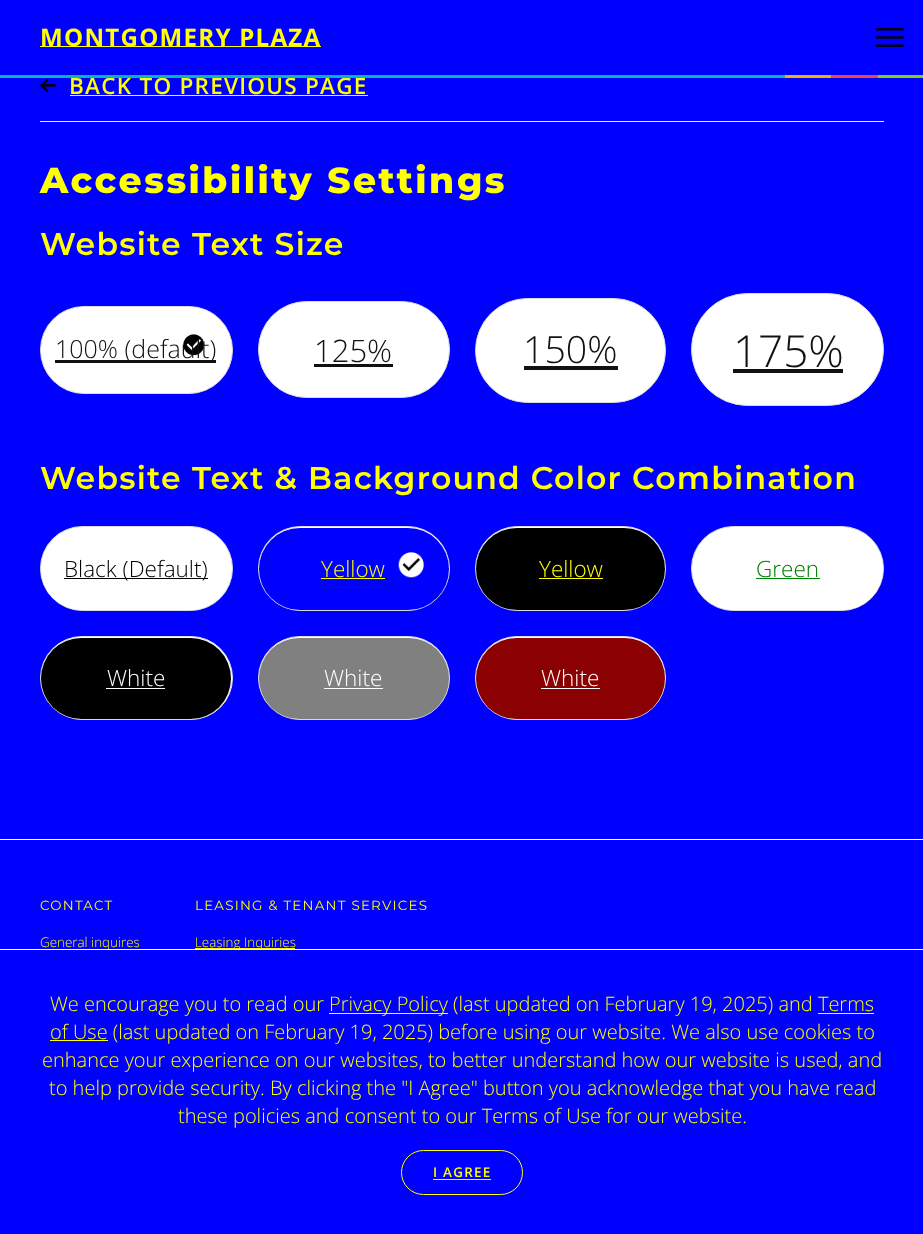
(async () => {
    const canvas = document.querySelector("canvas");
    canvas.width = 923;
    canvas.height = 1234;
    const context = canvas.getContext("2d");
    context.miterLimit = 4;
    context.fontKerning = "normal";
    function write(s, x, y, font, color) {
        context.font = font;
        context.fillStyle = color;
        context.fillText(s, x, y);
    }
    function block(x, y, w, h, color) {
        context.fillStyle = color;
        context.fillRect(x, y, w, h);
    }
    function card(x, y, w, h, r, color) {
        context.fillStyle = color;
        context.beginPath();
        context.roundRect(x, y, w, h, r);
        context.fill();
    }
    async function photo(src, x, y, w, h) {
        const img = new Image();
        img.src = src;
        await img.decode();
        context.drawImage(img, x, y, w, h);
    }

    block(0, 0, 923, 1234, "rgb(0, 0, 255)");
    block(40, 46, 281, 1, "rgb(255, 255, 0)");
    context.letterSpacing = "1.25px";
    write("MONTGOMERY PLAZA", 40, 46, "bold 24.1px Open Sans", "rgb(255, 255, 0)");
    await photo("media/1.png", 875, 28, 30, 19);
    block(878, 75, 45, 3, "rgb(126, 214, 0)");
    block(831, 75, 47, 3, "rgb(239, 71, 58)");
    block(785, 75, 46, 3, "rgb(240, 179, 0)");
    write("BACK TO PREVIOUS PAGE", 69, 94, "600 22.5px Open Sans", "rgb(255, 255, 0)");
    block(0, 75, 785, 3, "rgb(0, 182, 196)");
    block(40, 121, 844, 1, "rgb(233, 233, 233)");
    await photo("media/2.png", 40, 78, 17, 15);
    block(70, 95, 298, 1, "rgb(255, 255, 0)");
    context.letterSpacing = "2.5px";
    write("Accessibility Settings", 40, 193, "800 36px Montserrat", "rgb(255, 255, 0)");
    context.letterSpacing = "1.25px";
    write("Website Text Size", 40, 255, "600 31.5px Montserrat", "rgb(255, 255, 0)");
    context.fillStyle = "rgb(255, 255, 255)";
    context.beginPath();
    context.roundRect(40.5, 306.5, 192, 87, 43.5);
    context.fill();
    context.strokeStyle = "rgb(220, 220, 220)";
    context.stroke();
    await photo("media/3.png", 183, 334, 22, 22);
    block(55, 360, 161, 3, "rgb(17, 17, 17)");
    context.letterSpacing = "0px";
    write("100% (default)", 55, 358, "300 25px Open Sans", "rgb(17, 17, 17)");
    context.fillStyle = "rgb(255, 255, 255)";
    context.beginPath();
    context.roundRect(258.5, 301.5, 191, 96, 48);
    context.fill();
    context.stroke();
    write("125%", 314, 362, "300 31px Open Sans", "rgb(17, 17, 17)");
    block(314, 364, 79, 3, "rgb(17, 17, 17)");
    context.fillStyle = "rgb(255, 255, 255)";
    context.beginPath();
    context.roundRect(475.5, 298.5, 190, 104, 52);
    context.fill();
    context.stroke();
    write("150%", 523, 363, "300 37.5px Open Sans", "rgb(17, 17, 17)");
    block(524, 366, 94, 4, "rgb(17, 17, 17)");
    context.fillStyle = "rgb(255, 255, 255)";
    context.beginPath();
    context.roundRect(691.5, 293.5, 192, 112, 56);
    context.fill();
    context.stroke();
    write("175%", 733, 367, "300 44px Open Sans", "rgb(17, 17, 17)");
    block(733, 369, 110, 4, "rgb(17, 17, 17)");
    context.letterSpacing = "1.25px";
    write("Website Text & Background Color Combination", 40, 489, "600 31.5px Montserrat", "rgb(255, 255, 0)");
    context.fillStyle = "rgb(255, 255, 255)";
    context.beginPath();
    context.roundRect(40.5, 526.5, 192, 84, 42);
    context.fill();
    context.stroke();
    card(41, 528, 190, 82, 41, "rgb(255, 255, 255)");
    block(64, 578, 144, 1, "rgb(0, 0, 0)");
    context.letterSpacing = "0px";
    write("Black (Default)", 64, 577, "300 22.5px Open Sans", "rgb(0, 0, 0)");
    context.fillStyle = "rgb(255, 255, 255)";
    context.beginPath();
    context.roundRect(258.5, 526.5, 191, 84, 42);
    context.fill();
    context.stroke();
    card(259, 528, 190, 82, 41, "rgb(0, 0, 255)");
    await photo("media/4.png", 398, 552, 26, 26);
    write("Yellow", 321, 577, "300 22.5px Open Sans", "rgb(255, 255, 0)");
    block(321, 578, 64, 1, "rgb(255, 255, 0)");
    context.fillStyle = "rgb(255, 255, 255)";
    context.beginPath();
    context.roundRect(475.5, 526.5, 190, 84, 42);
    context.fill();
    context.stroke();
    card(476, 528, 189, 82, 41, "rgb(0, 0, 0)");
    write("Yellow", 539, 577, "300 22.5px Open Sans", "rgb(255, 255, 0)");
    block(539, 578, 64, 1, "rgb(255, 255, 0)");
    context.fillStyle = "rgb(255, 255, 255)";
    context.beginPath();
    context.roundRect(691.5, 526.5, 192, 84, 42);
    context.fill();
    context.stroke();
    card(693, 528, 190, 82, 41, "rgb(255, 255, 255)");
    write("Green", 756, 577, "300 22.5px Open Sans", "rgb(0, 128, 0)");
    block(756, 578, 64, 1, "rgb(0, 128, 0)");
    context.fillStyle = "rgb(255, 255, 255)";
    context.beginPath();
    context.roundRect(40.5, 636.5, 192, 83, 41.5);
    context.fill();
    context.stroke();
    card(41, 638, 190, 81, 40.5, "rgb(0, 0, 0)");
    write("White", 107, 686, "300 22.5px Open Sans", "rgb(255, 255, 255)");
    block(106, 688, 59, 1, "rgb(255, 255, 255)");
    context.beginPath();
    context.roundRect(258.5, 636.5, 191, 83, 41.5);
    context.fill();
    context.stroke();
    card(259, 638, 190, 81, 40.5, "rgb(128, 128, 128)");
    write("White", 324, 686, "300 22.5px Open Sans", "rgb(255, 255, 255)");
    block(324, 688, 59, 1, "rgb(255, 255, 255)");
    context.beginPath();
    context.roundRect(475.5, 636.5, 190, 83, 41.5);
    context.fill();
    context.stroke();
    card(476, 638, 189, 81, 40.5, "rgb(139, 0, 0)");
    write("White", 541, 686, "300 22.5px Open Sans", "rgb(255, 255, 255)");
    block(541, 688, 59, 1, "rgb(255, 255, 255)");
    block(0, 839, 923, 1, "rgb(255, 255, 255)");
    context.letterSpacing = "1.25px";
    write("CONTACT", 40, 910, "13.4px Montserrat", "rgb(255, 255, 0)");
    context.letterSpacing = "0px";
    write("General inquires", 40, 947, "300 13.4px Open Sans", "rgb(255, 255, 0)");
    context.letterSpacing = "1.25px";
    write("LEASING & TENANT SERVICES", 195, 910, "13.4px Montserrat", "rgb(255, 255, 0)");
    block(195, 948, 100, 1, "rgb(255, 255, 0)");
    context.letterSpacing = "0px";
    write("Leasing Inquiries", 195, 947, "300 13.4px Open Sans", "rgb(255, 255, 0)");
    block(107, 950, 155, 1, "rgb(0, 0, 255)");
    block(0, 949, 923, 1, "rgb(255, 255, 255)");
    write("We encourage you to read our", 50, 1011, "300 20px Open Sans", "rgb(255, 255, 0)");
    block(329, 1013, 119, 1, "rgb(255, 255, 0)");
    write("Privacy Policy (last updated on February 19, 2025) and Terms", 329, 1011, "300 20px Open Sans", "rgb(255, 255, 0)");
    block(50, 1040, 58, 1, "rgb(255, 255, 0)");
    write("of Use (last updated on February 19, 2025) before using our website. We also use cookies to", 50, 1039, "300 20px Open Sans", "rgb(255, 255, 0)");
    block(818, 1013, 56, 1, "rgb(255, 255, 0)");
    write("enhance your experience on our websites, to better understand how our website is used, and", 42, 1067, "300 20px Open Sans", "rgb(255, 255, 0)");
    write("to help provide security. By clicking the \"I Agree\" button you acknowledge that you have read", 49, 1095, "300 20px Open Sans", "rgb(255, 255, 0)");
    write("these policies and consent to our Terms of Use for our website.", 178, 1123, "300 20px Open Sans", "rgb(255, 255, 0)");
    context.beginPath();
    context.roundRect(401.5, 1150.5, 121, 44, 22);
    context.strokeStyle = "rgb(255, 255, 0)";
    context.stroke();
    context.letterSpacing = "1.25px";
    write("I AGREE", 433, 1177, "600 13.4px Open Sans", "rgb(255, 255, 0)");
    block(433, 1179, 58, 1, "rgb(255, 255, 0)");
})();
